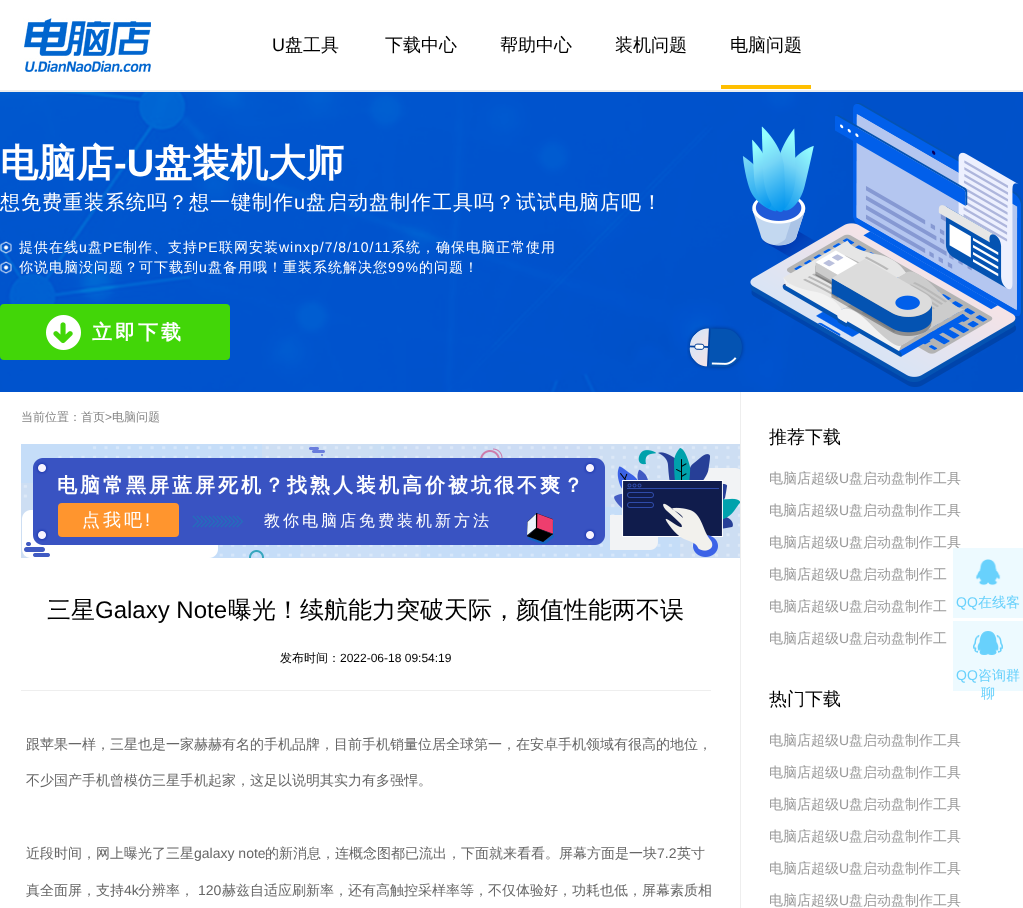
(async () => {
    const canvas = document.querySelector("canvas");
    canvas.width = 1023;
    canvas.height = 908;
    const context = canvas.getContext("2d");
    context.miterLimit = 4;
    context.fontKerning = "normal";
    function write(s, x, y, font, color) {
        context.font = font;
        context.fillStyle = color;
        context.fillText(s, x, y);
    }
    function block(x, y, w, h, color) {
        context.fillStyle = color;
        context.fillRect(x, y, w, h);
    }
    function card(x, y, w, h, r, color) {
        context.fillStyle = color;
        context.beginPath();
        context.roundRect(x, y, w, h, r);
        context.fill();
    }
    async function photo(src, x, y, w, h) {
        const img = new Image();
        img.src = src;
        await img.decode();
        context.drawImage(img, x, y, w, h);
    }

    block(0, 0, 1023, 908, "rgb(255, 255, 255)");
    await photo("media/1.png", 23, 18, 128, 54);
    write("U", 272, 51, "18px Liberation Sans", "rgb(0, 0, 0)");
    write("盘工具", 285, 51, "500 18px WenQuanYi Zen Hei", "rgb(0, 0, 0)");
    write("下载中心", 385, 51, "500 18px WenQuanYi Zen Hei", "rgb(0, 0, 0)");
    write("帮助中心", 500, 51, "500 18px WenQuanYi Zen Hei", "rgb(0, 0, 0)");
    write("装机问题", 615, 51, "500 18px WenQuanYi Zen Hei", "rgb(0, 0, 0)");
    block(721, 85, 90, 4, "rgb(255, 191, 0)");
    write("电脑问题", 730, 51, "500 18px WenQuanYi Zen Hei", "rgb(0, 0, 0)");
    block(0, 90, 1023, 2, "rgb(238, 238, 238)");
    await photo("media/2.png", 0, 92, 1023, 300);
    write("电脑店", 0, 176, "bold 38px WenQuanYi Zen Hei", "rgb(255, 255, 255)");
    write("-U", 114, 176, "bold 38px Liberation Sans", "rgb(255, 255, 255)");
    write("盘装机大师", 154, 176, "bold 38px WenQuanYi Zen Hei", "rgb(255, 255, 255)");
    context.letterSpacing = "1px";
    write("想免费重装系统吗？想一键制作", 0, 209, "500 20px WenQuanYi Zen Hei", "rgb(255, 255, 255)");
    write("u", 294, 209, "20px Liberation Sans", "rgb(255, 255, 255)");
    write("盘启动盘制作工具吗？试试电脑店吧！", 306, 209, "500 20px WenQuanYi Zen Hei", "rgb(255, 255, 255)");
    await photo("media/3.png", 0, 241, 12, 13);
    write("提供在线", 19, 252, "500 14px WenQuanYi Zen Hei", "rgb(255, 255, 255)");
    write("u", 79, 252, "14px Liberation Sans", "rgb(255, 255, 255)");
    write("盘", 88, 252, "500 14px WenQuanYi Zen Hei", "rgb(255, 255, 255)");
    write("PE", 103, 252, "14px Liberation Sans", "rgb(255, 255, 255)");
    write("制作、支持", 123, 252, "500 14px WenQuanYi Zen Hei", "rgb(255, 255, 255)");
    write("PE", 198, 252, "14px Liberation Sans", "rgb(255, 255, 255)");
    write("联网安装", 219, 252, "500 14px WenQuanYi Zen Hei", "rgb(255, 255, 255)");
    write("winxp/7/8/10/11", 279, 252, "14px Liberation Sans", "rgb(255, 255, 255)");
    write("系统，确保电脑正常使用", 391, 252, "500 14px WenQuanYi Zen Hei", "rgb(255, 255, 255)");
    await photo("media/4.png", 0, 261, 12, 13);
    write("你说电脑没问题？可下载到", 19, 272, "500 14px WenQuanYi Zen Hei", "rgb(255, 255, 255)");
    write("u", 199, 272, "14px Liberation Sans", "rgb(255, 255, 255)");
    write("盘备用哦！重装系统解决您", 208, 272, "500 14px WenQuanYi Zen Hei", "rgb(255, 255, 255)");
    write("99%", 388, 272, "14px Liberation Sans", "rgb(255, 255, 255)");
    write("的问题！", 419, 272, "500 14px WenQuanYi Zen Hei", "rgb(255, 255, 255)");
    card(0, 304, 230, 56, 4, "rgb(66, 214, 8)");
    await photo("media/5.png", 46, 315, 35, 35);
    context.letterSpacing = "3px";
    write("立即下载", 92, 339, "bold 20px WenQuanYi Zen Hei", "rgb(255, 255, 255)");
    await photo("media/6.png", 687, 103, 336, 284);
    context.letterSpacing = "0px";
    write("当前位置：首页", 21, 421, "500 12px WenQuanYi Zen Hei", "rgb(133, 133, 133)");
    write(">", 105, 421, "12px Liberation Sans", "rgb(133, 133, 133)");
    write("电脑问题", 112, 421, "500 12px WenQuanYi Zen Hei", "rgb(133, 133, 133)");
    await photo("media/7.png", 21, 444, 719, 114);
    context.letterSpacing = "3px";
    write("电脑常黑屏蓝屏死机？找熟人装机高价被坑很不爽？", 57, 492, "bold 20px WenQuanYi Zen Hei", "rgb(255, 255, 255)");
    card(58, 503, 121, 34, 4, "rgb(255, 149, 46)");
    write("点我吧", 82, 526, "500 18px WenQuanYi Zen Hei", "rgb(255, 255, 255)");
    write("!", 145, 526, "18px Liberation Sans", "rgb(255, 255, 255)");
    write("教你电脑店免费装机新方法", 264, 526, "500 16px WenQuanYi Zen Hei", "rgb(255, 255, 255)");
    block(21, 690, 690, 1, "rgb(238, 238, 238)");
    context.letterSpacing = "0px";
    write("三星", 47, 618, "500 24px WenQuanYi Zen Hei", "rgb(0, 0, 0)");
    write("Galaxy Note", 95, 618, "24px Liberation Sans", "rgb(0, 0, 0)");
    write("曝光！续航能力突破天际，颜值性能两不误", 228, 618, "500 24px WenQuanYi Zen Hei", "rgb(0, 0, 0)");
    write("发布时间：", 280, 662, "500 12px WenQuanYi Zen Hei", "rgb(0, 0, 0)");
    write("2022-06-18 09:54:19", 340, 662, "12px Liberation Sans", "rgb(0, 0, 0)");
    write("跟苹果一样，三星也是一家赫赫有名的手机品牌，目前手机销量位居全球第一，在安卓手机领域有很高的地位，", 26, 749, "500 14px WenQuanYi Zen Hei", "rgb(102, 102, 102)");
    write("不少国产手机曾模仿三星手机起家，这足以说明其实力有多强悍。", 26, 785, "500 14px WenQuanYi Zen Hei", "rgb(102, 102, 102)");
    write("近段时间，网上曝光了三星", 26, 858, "500 14px WenQuanYi Zen Hei", "rgb(102, 102, 102)");
    write("galaxy note", 194, 858, "14px Liberation Sans", "rgb(102, 102, 102)");
    write("的新消息，连概念图都已流出，下面就来看看。屏幕方面是一块", 265, 858, "500 14px WenQuanYi Zen Hei", "rgb(102, 102, 102)");
    write("7.2", 657, 858, "14px Liberation Sans", "rgb(102, 102, 102)");
    write("英寸", 677, 858, "500 14px WenQuanYi Zen Hei", "rgb(102, 102, 102)");
    write("真全面屏，支持", 26, 895, "500 14px WenQuanYi Zen Hei", "rgb(102, 102, 102)");
    write("4k", 124, 895, "14px Liberation Sans", "rgb(102, 102, 102)");
    write("分辨率，", 138, 895, "500 14px WenQuanYi Zen Hei", "rgb(102, 102, 102)");
    write("120", 198, 895, "14px Liberation Sans", "rgb(102, 102, 102)");
    write("赫兹自适应刷新率，还有高触控采样率等，不仅体验好，功耗也低，屏幕素质相", 222, 895, "500 14px WenQuanYi Zen Hei", "rgb(102, 102, 102)");
    block(740, 392, 1, 516, "rgb(238, 238, 238)");
    write("推荐下载", 769, 443, "500 18px WenQuanYi Zen Hei", "rgb(0, 0, 0)");
    write("电脑店超级", 769, 483, "500 14px WenQuanYi Zen Hei", "rgb(153, 153, 153)");
    write("U", 839, 483, "14px Liberation Sans", "rgb(153, 153, 153)");
    write("盘启动盘制作工具", 849, 483, "500 14px WenQuanYi Zen Hei", "rgb(153, 153, 153)");
    write("电脑店超级", 769, 515, "500 14px WenQuanYi Zen Hei", "rgb(153, 153, 153)");
    write("U", 839, 515, "14px Liberation Sans", "rgb(153, 153, 153)");
    write("盘启动盘制作工具", 849, 515, "500 14px WenQuanYi Zen Hei", "rgb(153, 153, 153)");
    write("电脑店超级", 769, 547, "500 14px WenQuanYi Zen Hei", "rgb(153, 153, 153)");
    write("U", 839, 547, "14px Liberation Sans", "rgb(153, 153, 153)");
    write("盘启动盘制作工具", 849, 547, "500 14px WenQuanYi Zen Hei", "rgb(153, 153, 153)");
    write("电脑店超级", 769, 579, "500 14px WenQuanYi Zen Hei", "rgb(153, 153, 153)");
    write("U", 839, 579, "14px Liberation Sans", "rgb(153, 153, 153)");
    write("盘启动盘制作工", 849, 579, "500 14px WenQuanYi Zen Hei", "rgb(153, 153, 153)");
    write("电脑店超级", 769, 611, "500 14px WenQuanYi Zen Hei", "rgb(153, 153, 153)");
    write("U", 839, 611, "14px Liberation Sans", "rgb(153, 153, 153)");
    write("盘启动盘制作工", 849, 611, "500 14px WenQuanYi Zen Hei", "rgb(153, 153, 153)");
    write("电脑店超级", 769, 643, "500 14px WenQuanYi Zen Hei", "rgb(153, 153, 153)");
    write("U", 839, 643, "14px Liberation Sans", "rgb(153, 153, 153)");
    write("盘启动盘制作工", 849, 643, "500 14px WenQuanYi Zen Hei", "rgb(153, 153, 153)");
    write("热门下载", 769, 705, "500 18px WenQuanYi Zen Hei", "rgb(0, 0, 0)");
    write("电脑店超级", 769, 745, "500 14px WenQuanYi Zen Hei", "rgb(153, 153, 153)");
    write("U", 839, 745, "14px Liberation Sans", "rgb(153, 153, 153)");
    write("盘启动盘制作工具", 849, 745, "500 14px WenQuanYi Zen Hei", "rgb(153, 153, 153)");
    write("电脑店超级", 769, 777, "500 14px WenQuanYi Zen Hei", "rgb(153, 153, 153)");
    write("U", 839, 777, "14px Liberation Sans", "rgb(153, 153, 153)");
    write("盘启动盘制作工具", 849, 777, "500 14px WenQuanYi Zen Hei", "rgb(153, 153, 153)");
    write("电脑店超级", 769, 809, "500 14px WenQuanYi Zen Hei", "rgb(153, 153, 153)");
    write("U", 839, 809, "14px Liberation Sans", "rgb(153, 153, 153)");
    write("盘启动盘制作工具", 849, 809, "500 14px WenQuanYi Zen Hei", "rgb(153, 153, 153)");
    write("电脑店超级", 769, 841, "500 14px WenQuanYi Zen Hei", "rgb(153, 153, 153)");
    write("U", 839, 841, "14px Liberation Sans", "rgb(153, 153, 153)");
    write("盘启动盘制作工具", 849, 841, "500 14px WenQuanYi Zen Hei", "rgb(153, 153, 153)");
    write("电脑店超级", 769, 873, "500 14px WenQuanYi Zen Hei", "rgb(153, 153, 153)");
    write("U", 839, 873, "14px Liberation Sans", "rgb(153, 153, 153)");
    write("盘启动盘制作工具", 849, 873, "500 14px WenQuanYi Zen Hei", "rgb(153, 153, 153)");
    write("电脑店超级", 769, 905, "500 14px WenQuanYi Zen Hei", "rgb(153, 153, 153)");
    write("U", 839, 905, "14px Liberation Sans", "rgb(153, 153, 153)");
    write("盘启动盘制作工具", 849, 905, "500 14px WenQuanYi Zen Hei", "rgb(153, 153, 153)");
    block(953, 548, 70, 70, "rgb(237, 250, 255)");
    await photo("media/8.png", 975, 559, 26, 27);
    write("QQ", 956, 607, "14px Liberation Sans", "rgb(104, 209, 252)");
    write("在线客", 978, 607, "500 14px WenQuanYi Zen Hei", "rgb(104, 209, 252)");
    block(953, 621, 70, 70, "rgb(237, 250, 255)");
    await photo("media/9.png", 973, 631, 30, 24);
    write("QQ", 956, 680, "14px Liberation Sans", "rgb(104, 209, 252)");
    write("咨询群", 978, 680, "500 14px WenQuanYi Zen Hei", "rgb(104, 209, 252)");
    write("聊", 981, 698, "500 14px WenQuanYi Zen Hei", "rgb(104, 209, 252)");
})();
